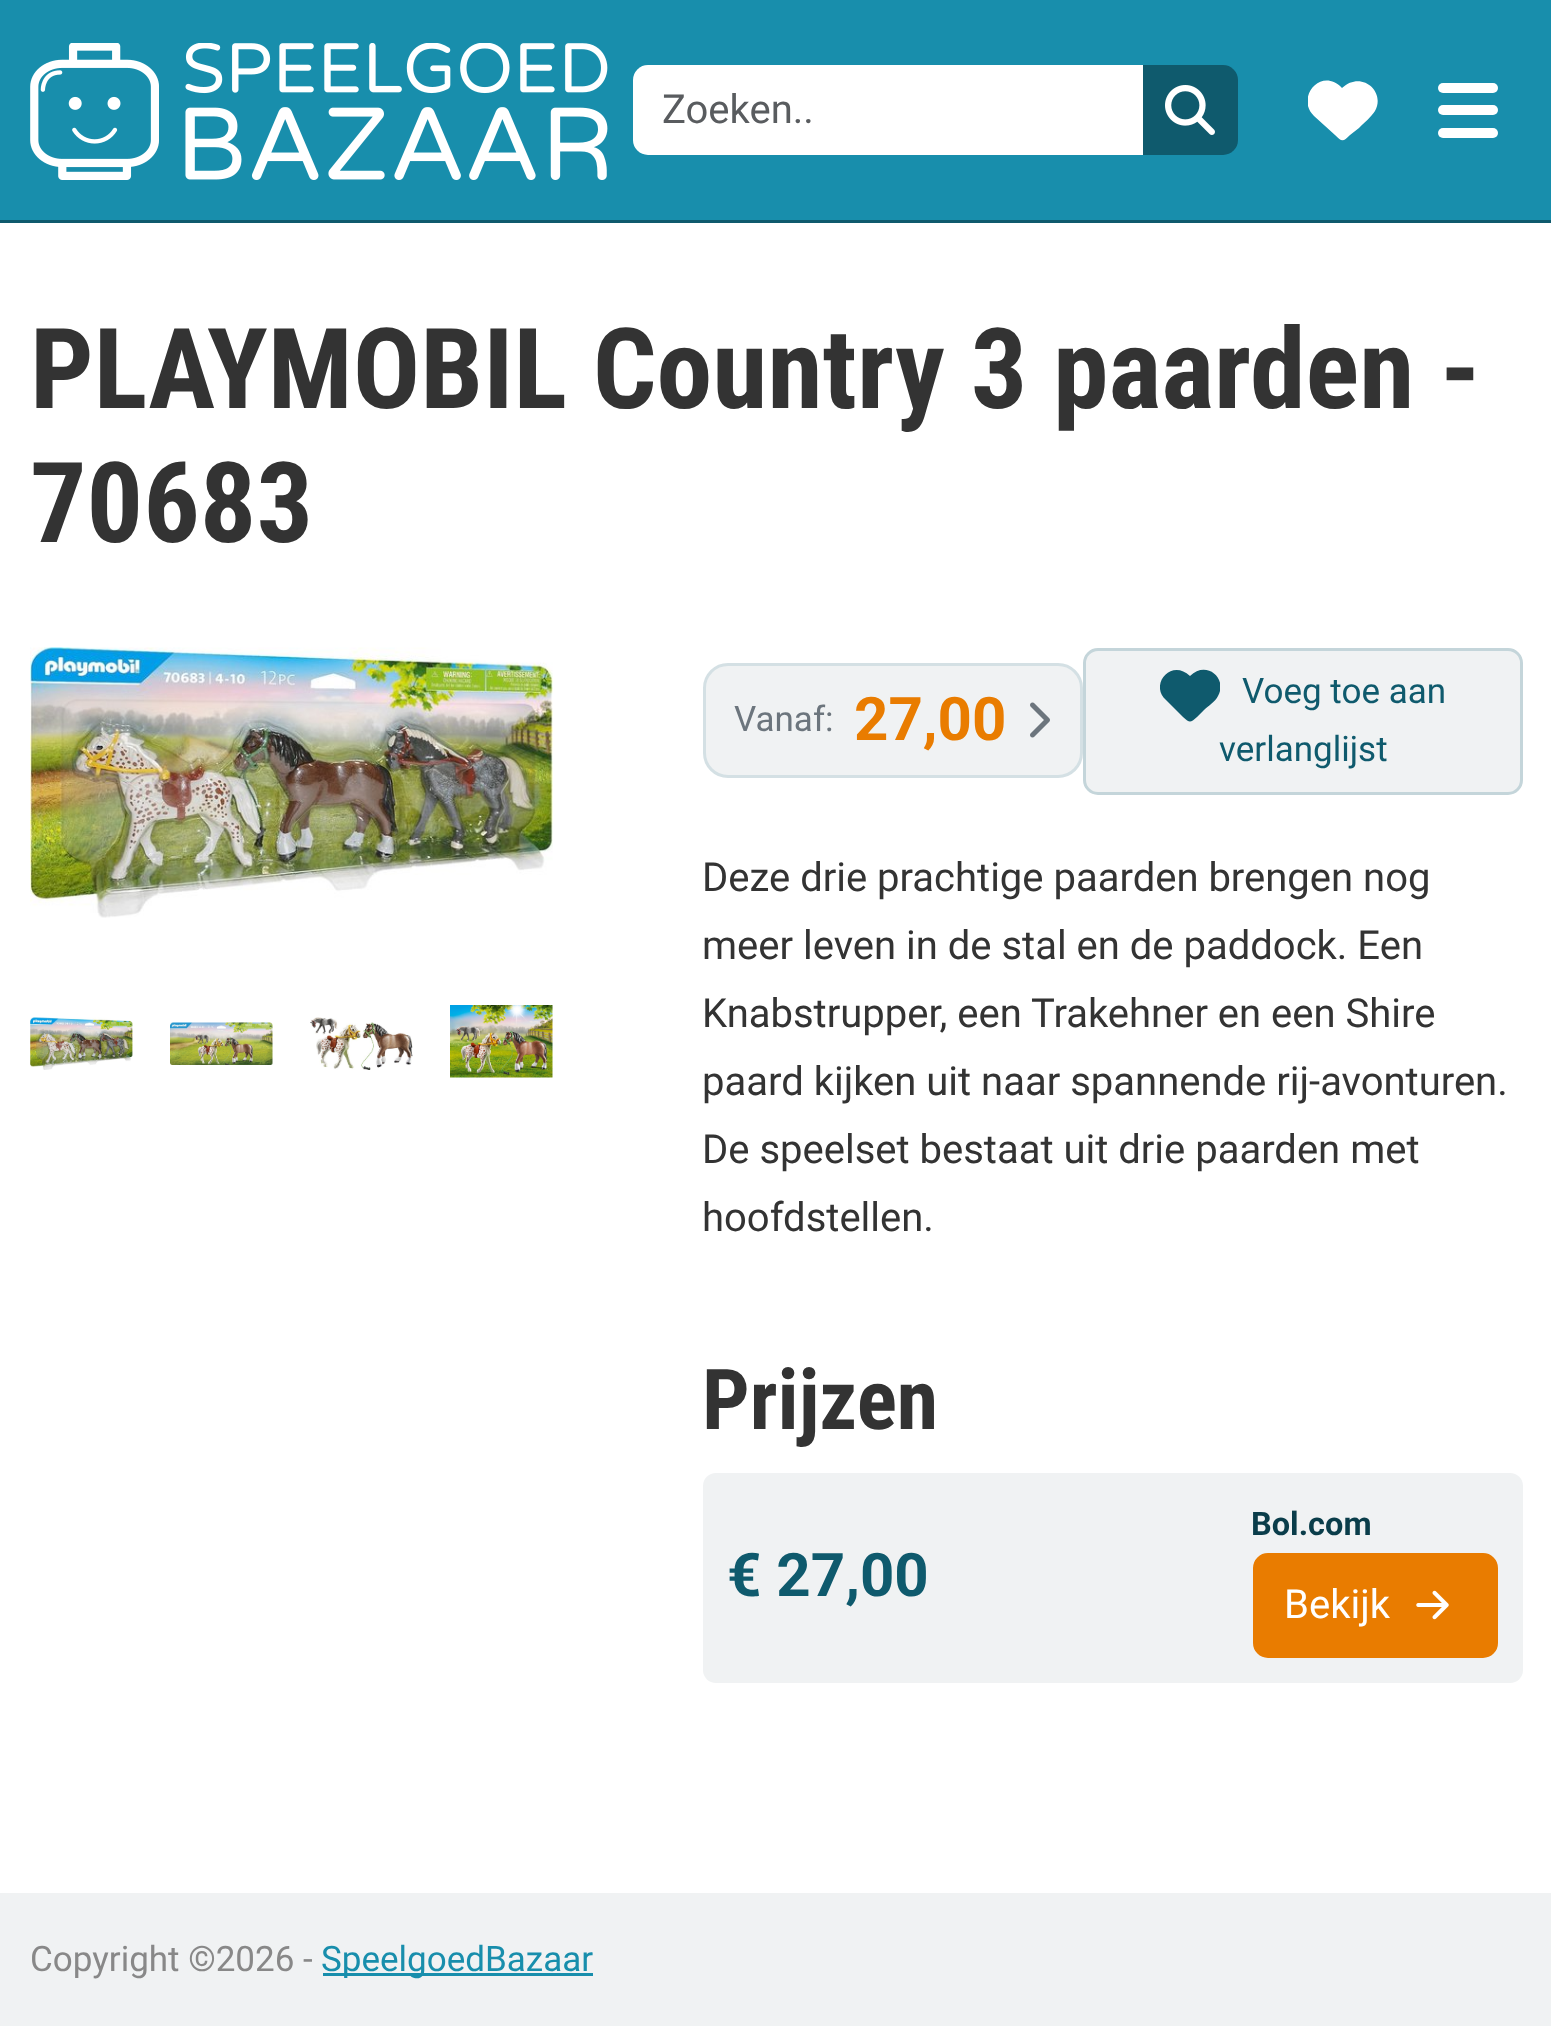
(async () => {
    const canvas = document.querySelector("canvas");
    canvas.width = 1551;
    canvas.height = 2026;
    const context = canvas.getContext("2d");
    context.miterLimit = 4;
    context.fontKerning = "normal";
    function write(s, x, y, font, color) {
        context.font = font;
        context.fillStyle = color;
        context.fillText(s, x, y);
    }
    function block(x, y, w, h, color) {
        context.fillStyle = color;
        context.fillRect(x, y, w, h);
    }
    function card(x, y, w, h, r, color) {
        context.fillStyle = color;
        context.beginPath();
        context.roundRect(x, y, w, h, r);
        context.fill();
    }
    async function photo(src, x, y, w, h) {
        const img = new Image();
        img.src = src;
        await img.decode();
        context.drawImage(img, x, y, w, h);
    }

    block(0, 0, 1551, 2026, "rgb(255, 255, 255)");
    block(0, 0, 1551, 220, "rgb(24, 142, 172)");
    block(0, 220, 1551, 3, "rgb(15, 90, 109)");
    await photo("media/1.png", 30, 43, 578, 137);
    context.fillStyle = "rgb(255, 255, 255)";
    context.beginPath();
    context.roundRect(633, 65, 512, 90, [15, 0, 0, 15]);
    context.fill();
    write("Zoeken..", 662, 123, "40px Roboto", "rgb(89, 92, 95)");
    context.fillStyle = "rgb(15, 90, 109)";
    context.beginPath();
    context.roundRect(1143, 65, 95, 90, [0, 15, 15, 0]);
    context.fill();
    await photo("media/2.png", 1165, 85, 50, 50);
    context.save();
    context.beginPath();
    context.rect(1308, 75, 70, 70);
    context.clip();
    context.fillStyle = "rgb(255, 255, 255)";
    context.beginPath();
    context.moveTo(1314, 116);
    context.lineTo(1335, 135);
    context.bezierCurveTo(1342, 142, 1343, 142, 1350, 135);
    context.lineTo(1359, 128);
    context.bezierCurveTo(1364, 123, 1371, 117, 1375, 111);
    context.bezierCurveTo(1386, 91, 1361, 70, 1342, 88);
    context.bezierCurveTo(1321, 66, 1295, 98, 1314, 116);
    context.closePath();
    context.fill();
    context.restore();
    card(1438, 83, 60, 10, 5, "rgb(255, 255, 255)");
    card(1438, 105, 60, 10, 5, "rgb(255, 255, 255)");
    card(1438, 128, 60, 10, 5, "rgb(255, 255, 255)");
    write("PLAYMOBIL Country 3 paarden -", 30, 408, "bold 112px Roboto Condensed", "rgb(51, 51, 51)");
    write("70683", 30, 542, "bold 112px Roboto Condensed", "rgb(51, 51, 51)");
    await photo("media/3.png", 30, 647, 523, 271);
    await photo("media/4.png", 30, 1017, 103, 53);
    await photo("media/5.png", 170, 1022, 103, 43);
    await photo("media/6.png", 310, 1017, 103, 53);
    await photo("media/7.png", 450, 1005, 103, 73);
    context.fillStyle = "rgb(240, 242, 243)";
    context.beginPath();
    context.roundRect(704.5, 664.5, 377, 112, 23.5);
    context.fill();
    context.strokeStyle = "rgb(212, 224, 228)";
    context.lineWidth = 3;
    context.stroke();
    write("Vanaf:", 734, 731, "35px Roboto", "rgb(108, 117, 125)");
    write("27,00", 854, 740, "bold 60px Roboto", "rgb(233, 124, 0)");
    await photo("media/8.png", 1030, 702, 20, 36);
    context.fillStyle = "rgb(240, 242, 243)";
    context.beginPath();
    context.roundRect(1084.5, 649.5, 437, 144, 13.5);
    context.fill();
    context.strokeStyle = "rgb(196, 213, 218)";
    context.stroke();
    context.save();
    context.beginPath();
    context.rect(1160, 665, 60, 60);
    context.clip();
    context.fillStyle = "rgb(15, 90, 109)";
    context.beginPath();
    context.moveTo(1166, 700);
    context.lineTo(1183, 717);
    context.bezierCurveTo(1190, 723, 1190, 723, 1197, 717);
    context.lineTo(1204, 710);
    context.bezierCurveTo(1208, 706, 1215, 702, 1218, 696);
    context.bezierCurveTo(1228, 678, 1206, 660, 1190, 676);
    context.bezierCurveTo(1171, 658, 1149, 685, 1166, 700);
    context.closePath();
    context.fill();
    context.restore();
    write("Voeg toe aan", 1242, 703, "35px Roboto", "rgb(15, 90, 109)");
    write("verlanglijst", 1219, 761, "35px Roboto", "rgb(15, 90, 109)");
    write("Deze drie prachtige paarden brengen nog", 702, 891, "40px Roboto", "rgb(51, 51, 51)");
    write("meer leven in de stal en de paddock. Een", 702, 959, "40px Roboto", "rgb(51, 51, 51)");
    write("Knabstrupper, een Trakehner en een Shire", 702, 1027, "40px Roboto", "rgb(51, 51, 51)");
    write("paard kijken uit naar spannende rij-avonturen.", 702, 1095, "40px Roboto", "rgb(51, 51, 51)");
    write("De speelset bestaat uit drie paarden met", 702, 1163, "40px Roboto", "rgb(51, 51, 51)");
    write("hoofdstellen.", 702, 1231, "40px Roboto", "rgb(51, 51, 51)");
    write("Prijzen", 702, 1429, "bold 84px Roboto Condensed", "rgb(51, 51, 51)");
    card(703, 1473, 820, 210, 13, "rgb(240, 242, 243)");
    write("€ 27,00", 727, 1596, "bold 60px Roboto", "rgb(15, 90, 109)");
    write("Bol.com", 1251, 1535, "bold 32.5px Roboto", "rgb(10, 61, 74)");
    context.fillStyle = "rgb(233, 124, 0)";
    context.beginPath();
    context.roundRect(1254.5, 1554.5, 242, 102, 13.5);
    context.fill();
    context.strokeStyle = "rgb(233, 124, 0)";
    context.stroke();
    write("Bekijk", 1284, 1618, "40px Roboto", "rgb(255, 255, 255)");
    await photo("media/9.png", 1416, 1590, 33, 30);
    block(0, 1893, 1551, 133, "rgb(240, 242, 243)");
    write("Copyright ©2026 -", 30, 1971, "35px Roboto", "rgb(136, 136, 136)");
    block(323, 1973, 270, 3, "rgb(24, 142, 172)");
    write("SpeelgoedBazaar", 321, 1971, "35px Roboto", "rgb(24, 142, 172)");
})();
